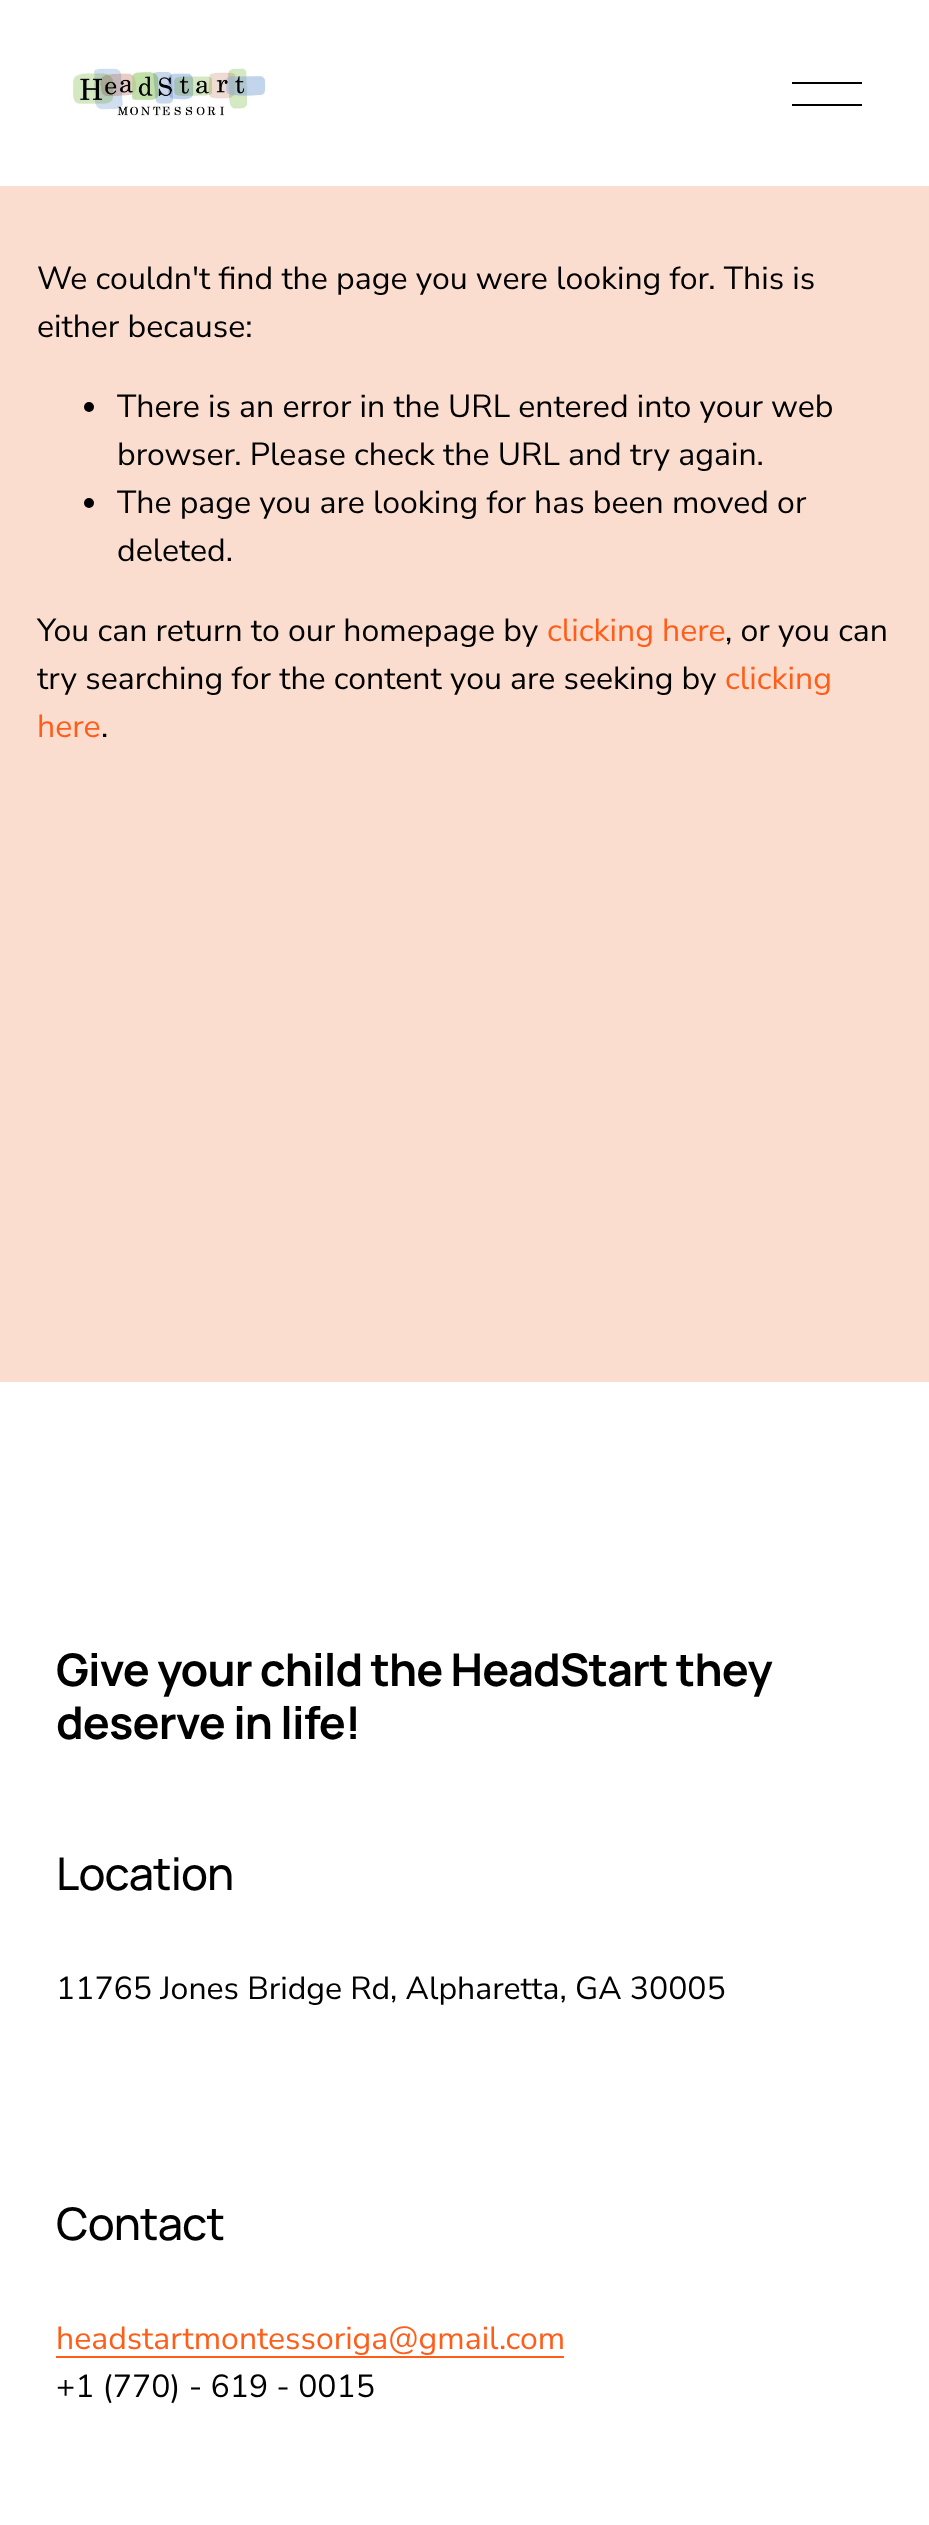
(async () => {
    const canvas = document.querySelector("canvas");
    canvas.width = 929;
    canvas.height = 2525;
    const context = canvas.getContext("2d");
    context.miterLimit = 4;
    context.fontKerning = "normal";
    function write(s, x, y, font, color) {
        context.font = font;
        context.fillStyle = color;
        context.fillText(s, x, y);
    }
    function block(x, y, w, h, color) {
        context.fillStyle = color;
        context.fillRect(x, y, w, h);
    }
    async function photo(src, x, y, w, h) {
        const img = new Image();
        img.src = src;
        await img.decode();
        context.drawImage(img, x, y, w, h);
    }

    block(0, 0, 929, 2525, "rgb(251, 221, 207)");
    block(0, 0, 929, 186, "rgb(255, 255, 255)");
    await photo("media/1.png", 72, 68, 194, 49);
    block(792, 82, 70, 2, "rgb(0, 0, 0)");
    block(792, 104, 70, 2, "rgb(0, 0, 0)");
    write("We couldn't find the page you were looking for. This is", 37, 289, "32px Nunito Sans", "rgb(0, 0, 0)");
    write("either because:", 37, 337, "32px Nunito Sans", "rgb(0, 0, 0)");
    context.beginPath();
    context.arc(89, 407, 5, 0, Math.PI * 2);
    context.fill();
    write("There is an error in the URL entered into your web", 117, 417, "32px Nunito Sans", "rgb(0, 0, 0)");
    write("browser. Please check the URL and try again.", 117, 465, "32px Nunito Sans", "rgb(0, 0, 0)");
    context.beginPath();
    context.arc(89, 503, 5, 0, Math.PI * 2);
    context.fill();
    write("The page you are looking for has been moved or", 117, 513, "32px Nunito Sans", "rgb(0, 0, 0)");
    write("deleted.", 117, 561, "32px Nunito Sans", "rgb(0, 0, 0)");
    write("You can return to our homepage by", 37, 641, "32px Nunito Sans", "rgb(0, 0, 0)");
    write("clicking here", 547, 641, "32px Nunito Sans", "rgb(255, 94, 26)");
    write(", or you can", 725, 641, "32px Nunito Sans", "rgb(0, 0, 0)");
    write("try searching for the content you are seeking by", 37, 689, "32px Nunito Sans", "rgb(0, 0, 0)");
    write("clicking", 725, 689, "32px Nunito Sans", "rgb(255, 94, 26)");
    write("here", 37, 737, "32px Nunito Sans", "rgb(255, 94, 26)");
    write(".", 101, 737, "32px Nunito Sans", "rgb(0, 0, 0)");
    block(0, 1382, 929, 1143, "rgb(255, 255, 255)");
    context.letterSpacing = "-0.9px";
    write("Give your child the HeadStart they", 56, 1686, "bold 45px Manrope", "rgb(0, 0, 0)");
    write("deserve in life!", 56, 1739, "bold 45px Manrope", "rgb(0, 0, 0)");
    write("Location", 56, 1890, "500 45px Manrope", "rgb(0, 0, 0)");
    context.letterSpacing = "0px";
    write("11765 Jones Bridge Rd, Alpharetta, GA 30005", 56, 1999, "32px Nunito Sans", "rgb(0, 0, 0)");
    context.letterSpacing = "-0.9px";
    write("Contact", 56, 2240, "500 45px Manrope", "rgb(0, 0, 0)");
    context.letterSpacing = "0px";
    write("headstartmontessoriga@gmail.com", 56, 2349, "32px Nunito Sans", "rgb(255, 94, 26)");
    block(56, 2356, 508, 2, "rgb(255, 94, 26)");
    write("+1 (770) - 619 - 0015", 56, 2397, "32px Nunito Sans", "rgb(0, 0, 0)");
})();
